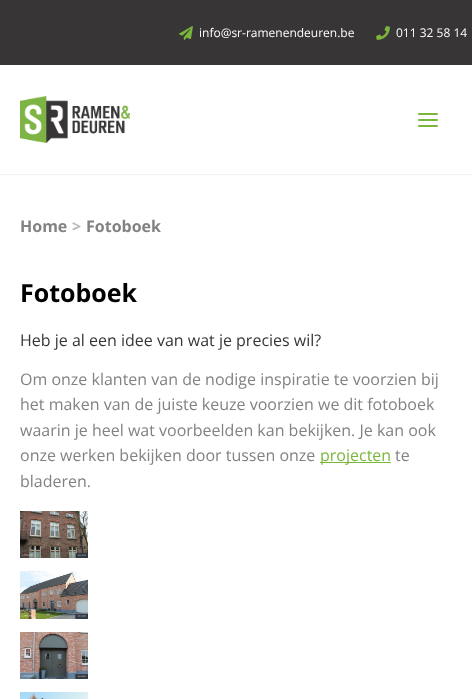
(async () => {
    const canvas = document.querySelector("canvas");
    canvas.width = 472;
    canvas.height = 699;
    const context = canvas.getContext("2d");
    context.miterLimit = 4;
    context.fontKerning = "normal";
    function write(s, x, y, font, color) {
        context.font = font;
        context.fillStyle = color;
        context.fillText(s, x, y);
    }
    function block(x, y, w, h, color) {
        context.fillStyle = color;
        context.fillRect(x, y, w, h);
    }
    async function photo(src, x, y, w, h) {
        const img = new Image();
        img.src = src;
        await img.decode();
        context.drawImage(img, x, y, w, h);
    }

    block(0, 0, 472, 699, "rgb(255, 255, 255)");
    block(0, 0, 472, 65, "rgb(56, 53, 54)");
    await photo("media/1.png", 179, 26, 14, 14);
    write("info@sr-ramenendeuren.be", 199, 37, "12px Open Sans", "rgb(254, 254, 254)");
    await photo("media/2.png", 376, 26, 14, 14);
    write("011 32 58 14", 396, 37, "12px Open Sans", "rgb(254, 254, 254)");
    block(0, 174, 472, 1, "rgb(242, 242, 242)");
    await photo("media/3.png", 20, 96, 110, 47);
    await photo("media/4.png", 418, 113, 20, 14);
    write("Home", 20, 232, "bold 16px Open Sans", "rgb(130, 130, 130)");
    write(">", 72, 232, "bold 16px Open Sans", "rgb(185, 185, 185)");
    write("Fotoboek", 86, 232, "bold 16px Open Sans", "rgb(130, 130, 130)");
    write("Fotoboek", 20, 302, "bold 25px Open Sans", "rgb(0, 0, 0)");
    write("Heb je al een idee van wat je precies wil?", 20, 346, "16px Open Sans", "rgb(56, 53, 54)");
    write("Om onze klanten van de nodige inspiratie te voorzien bij", 20, 385, "16px Open Sans", "rgb(130, 130, 130)");
    write("het maken van de juiste keuze voorzien we dit fotoboek", 20, 410, "16px Open Sans", "rgb(130, 130, 130)");
    write("waarin je heel wat voorbeelden kan bekijken. Je kan ook", 20, 436, "16px Open Sans", "rgb(130, 130, 130)");
    write("onze werken bekijken door tussen onze", 20, 461, "16px Open Sans", "rgb(130, 130, 130)");
    block(320, 462, 71, 1, "rgb(123, 182, 60)");
    write("projecten", 320, 461, "16px Open Sans", "rgb(123, 182, 60)");
    write("te", 395, 461, "16px Open Sans", "rgb(130, 130, 130)");
    write("bladeren.", 20, 487, "16px Open Sans", "rgb(130, 130, 130)");
    await photo("media/5.png", 20, 511, 68, 47);
    await photo("media/6.png", 20, 571, 68, 48);
    await photo("media/7.png", 20, 632, 68, 47);
    await photo("media/8.png", 20, 692, 68, 7);
})();
